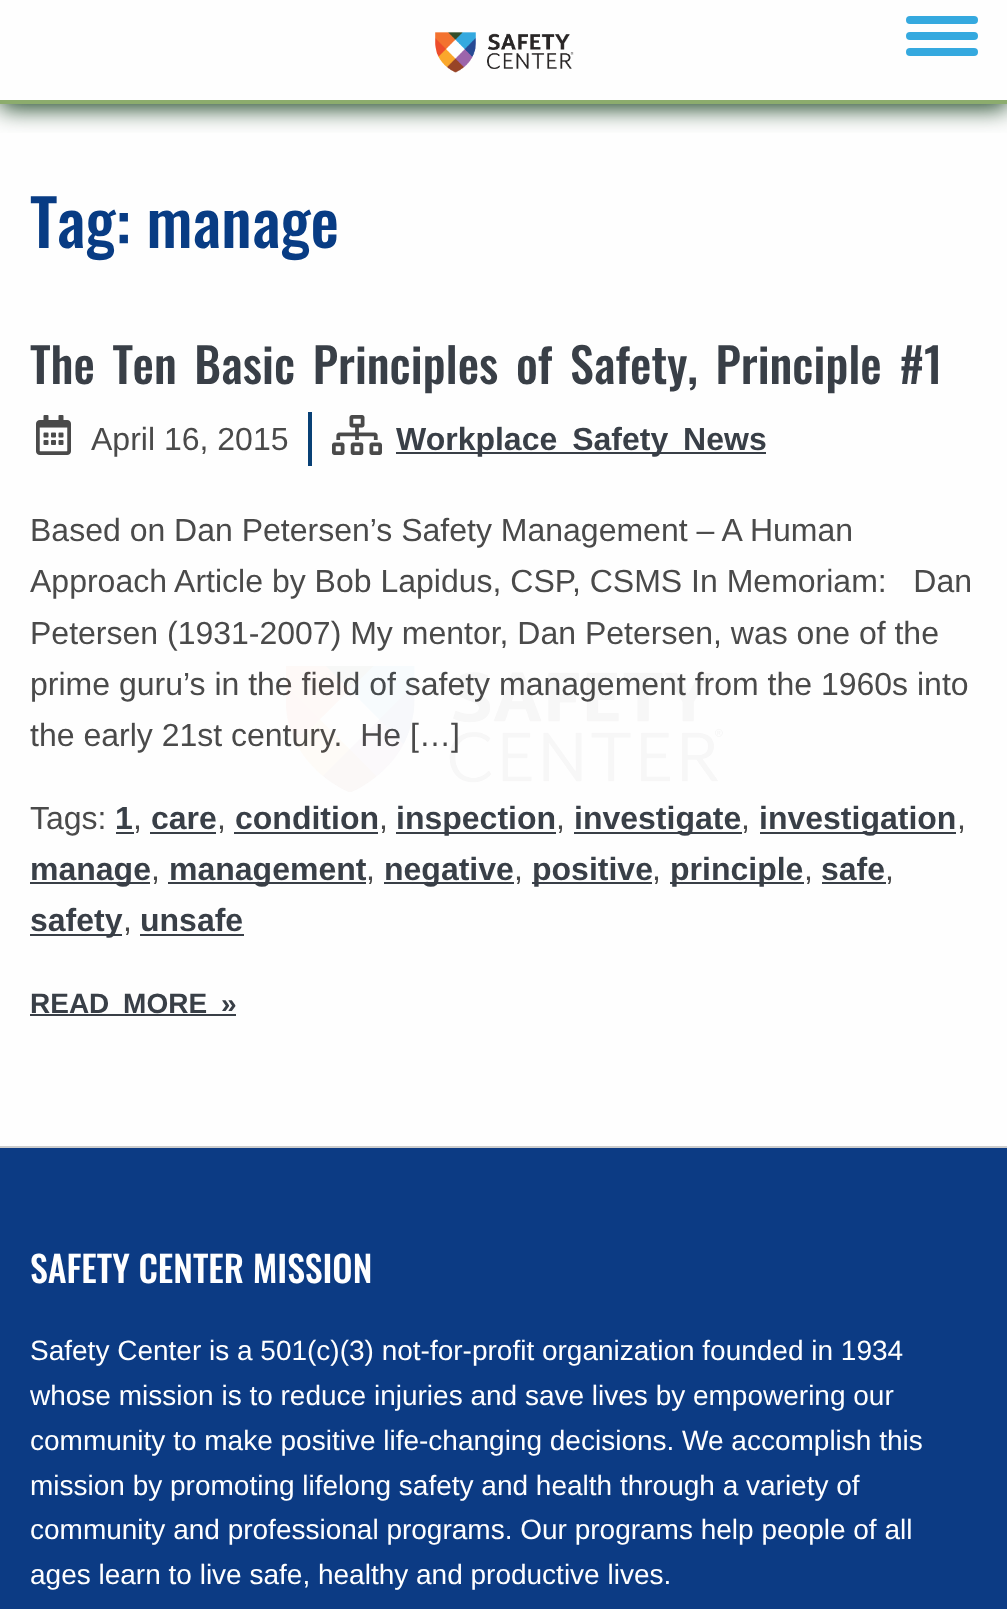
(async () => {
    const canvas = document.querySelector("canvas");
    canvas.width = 1007;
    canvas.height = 1609;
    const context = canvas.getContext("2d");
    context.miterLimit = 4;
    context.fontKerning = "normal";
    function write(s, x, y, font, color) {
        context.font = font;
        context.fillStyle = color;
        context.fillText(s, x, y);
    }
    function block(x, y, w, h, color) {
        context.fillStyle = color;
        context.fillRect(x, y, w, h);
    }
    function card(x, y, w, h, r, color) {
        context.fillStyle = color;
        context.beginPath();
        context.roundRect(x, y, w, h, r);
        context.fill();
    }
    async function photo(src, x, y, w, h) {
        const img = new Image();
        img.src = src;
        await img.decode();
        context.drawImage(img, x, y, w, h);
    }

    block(0, 0, 1007, 1609, "rgb(254, 254, 254)");
    context.save();
    context.beginPath();
    context.rect(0, 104, 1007, 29);
    context.clip();
    context.fillStyle = "rgb(17, 60, 26)";
    context.filter = "blur(12px)";
    context.beginPath();
    context.rect(0, 4, 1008, 104);
    context.fill();
    context.filter = "none";
    context.restore();
    block(0, 100, 1007, 4, "rgb(140, 172, 109)");
    await photo("media/1.png", 435, 32, 139, 41);
    card(906, 16, 72, 8, 4, "rgb(53, 169, 223)");
    card(906, 32, 72, 8, 4, "rgb(53, 169, 223)");
    card(906, 48, 72, 8, 4, "rgb(53, 169, 223)");
    write("Tag: manage", 30, 248, "500 64px Oswald", "rgb(8, 60, 132)");
    context.wordSpacing = "6px";
    write("The Ten Basic Principles of Safety, Principle #1", 30, 384, "500 48px Oswald", "rgb(57, 63, 71)");
    block(308, 412, 4, 54, "rgb(8, 64, 117)");
    await photo("media/2.png", 36, 415, 35, 40);
    context.wordSpacing = "0px";
    write("April 16, 2015", 91, 450, "32px Liberation Sans", "rgb(74, 74, 74)");
    await photo("media/3.png", 332, 415, 50, 40);
    block(396, 452, 370, 2, "rgb(57, 63, 71)");
    context.wordSpacing = "6px";
    write("Workplace Safety News", 396, 450, "bold 32px Liberation Sans", "rgb(57, 63, 71)");
    context.wordSpacing = "0px";
    write("Based on Dan Petersen’s Safety Management – A Human", 30, 541, "32px Liberation Sans", "rgb(74, 74, 74)");
    write("Approach Article by Bob Lapidus, CSP, CSMS In Memoriam:   Dan", 30, 592, "32px Liberation Sans", "rgb(74, 74, 74)");
    write("Petersen (1931-2007) My mentor, Dan Petersen, was one of the", 30, 644, "32px Liberation Sans", "rgb(74, 74, 74)");
    write("prime guru’s in the field of safety management from the 1960s into", 30, 695, "32px Liberation Sans", "rgb(74, 74, 74)");
    write("the early 21st century.  He […]", 30, 746, "32px Liberation Sans", "rgb(74, 74, 74)");
    write("Tags:", 30, 829, "32px Liberation Sans", "rgb(74, 74, 74)");
    write("1", 115, 829, "bold 32px Liberation Sans", "rgb(57, 63, 71)");
    block(116, 832, 18, 2, "rgb(57, 63, 71)");
    write(",", 133, 829, "32px Liberation Sans", "rgb(74, 74, 74)");
    write("care", 151, 829, "bold 32px Liberation Sans", "rgb(57, 63, 71)");
    block(150, 832, 66, 2, "rgb(57, 63, 71)");
    write(",", 217, 829, "32px Liberation Sans", "rgb(74, 74, 74)");
    write("condition", 235, 829, "bold 32px Liberation Sans", "rgb(57, 63, 71)");
    block(234, 832, 144, 2, "rgb(57, 63, 71)");
    write(",", 379, 829, "32px Liberation Sans", "rgb(74, 74, 74)");
    block(396, 832, 160, 2, "rgb(57, 63, 71)");
    write("inspection", 396, 829, "bold 32px Liberation Sans", "rgb(57, 63, 71)");
    write(",", 556, 829, "32px Liberation Sans", "rgb(74, 74, 74)");
    block(574, 832, 168, 2, "rgb(57, 63, 71)");
    write("investigate", 574, 829, "bold 32px Liberation Sans", "rgb(57, 63, 71)");
    write(",", 741, 829, "32px Liberation Sans", "rgb(74, 74, 74)");
    block(760, 832, 196, 2, "rgb(57, 63, 71)");
    write("investigation", 759, 829, "bold 32px Liberation Sans", "rgb(57, 63, 71)");
    write(",", 957, 829, "32px Liberation Sans", "rgb(74, 74, 74)");
    block(30, 882, 120, 2, "rgb(57, 63, 71)");
    write("manage", 30, 880, "bold 32px Liberation Sans", "rgb(57, 63, 71)");
    write(",", 151, 880, "32px Liberation Sans", "rgb(74, 74, 74)");
    block(168, 882, 198, 2, "rgb(57, 63, 71)");
    write("management", 169, 880, "bold 32px Liberation Sans", "rgb(57, 63, 71)");
    write(",", 366, 880, "32px Liberation Sans", "rgb(74, 74, 74)");
    block(384, 882, 130, 2, "rgb(57, 63, 71)");
    write("negative", 384, 880, "bold 32px Liberation Sans", "rgb(57, 63, 71)");
    write(",", 514, 880, "32px Liberation Sans", "rgb(74, 74, 74)");
    block(532, 882, 120, 2, "rgb(57, 63, 71)");
    write("positive", 532, 880, "bold 32px Liberation Sans", "rgb(57, 63, 71)");
    write(",", 652, 880, "32px Liberation Sans", "rgb(74, 74, 74)");
    block(670, 882, 134, 2, "rgb(57, 63, 71)");
    write("principle", 670, 880, "bold 32px Liberation Sans", "rgb(57, 63, 71)");
    write(",", 804, 880, "32px Liberation Sans", "rgb(74, 74, 74)");
    write("safe", 821, 880, "bold 32px Liberation Sans", "rgb(57, 63, 71)");
    block(822, 882, 64, 2, "rgb(57, 63, 71)");
    write(",", 885, 880, "32px Liberation Sans", "rgb(74, 74, 74)");
    block(30, 934, 92, 2, "rgb(57, 63, 71)");
    write("safety", 30, 931, "bold 32px Liberation Sans", "rgb(57, 63, 71)");
    write(",", 123, 931, "32px Liberation Sans", "rgb(74, 74, 74)");
    write("unsafe", 140, 931, "bold 32px Liberation Sans", "rgb(57, 63, 71)");
    block(140, 934, 104, 2, "rgb(57, 63, 71)");
    context.wordSpacing = "6px";
    write("READ MORE »", 30, 1013, "bold 28px Liberation Sans", "rgb(57, 63, 71)");
    block(30, 1014, 206, 2, "rgb(57, 63, 71)");
    block(0, 1148, 1007, 461, "rgb(12, 59, 132)");
    block(0, 1146, 1007, 2, "rgb(204, 204, 204)");
    context.wordSpacing = "0px";
    write("SAFETY CENTER MISSION", 30, 1283, "500 36px Oswald", "rgb(255, 255, 255)");
    write("Safety Center is a 501(c)(3) not-for-profit organization founded in 1934", 30, 1360, "28px Liberation Sans", "rgb(255, 255, 255)");
    write("whose mission is to reduce injuries and save lives by empowering our", 30, 1405, "28px Liberation Sans", "rgb(255, 255, 255)");
    write("community to make positive life-changing decisions. We accomplish this", 30, 1450, "28px Liberation Sans", "rgb(255, 255, 255)");
    write("mission by promoting lifelong safety and health through a variety of", 30, 1495, "28px Liberation Sans", "rgb(255, 255, 255)");
    write("community and professional programs. Our programs help people of all", 30, 1539, "28px Liberation Sans", "rgb(255, 255, 255)");
    write("ages learn to live safe, healthy and productive lives.", 30, 1584, "28px Liberation Sans", "rgb(255, 255, 255)");
    await photo("media/4.png", 286, 666, 437, 126);
})();
